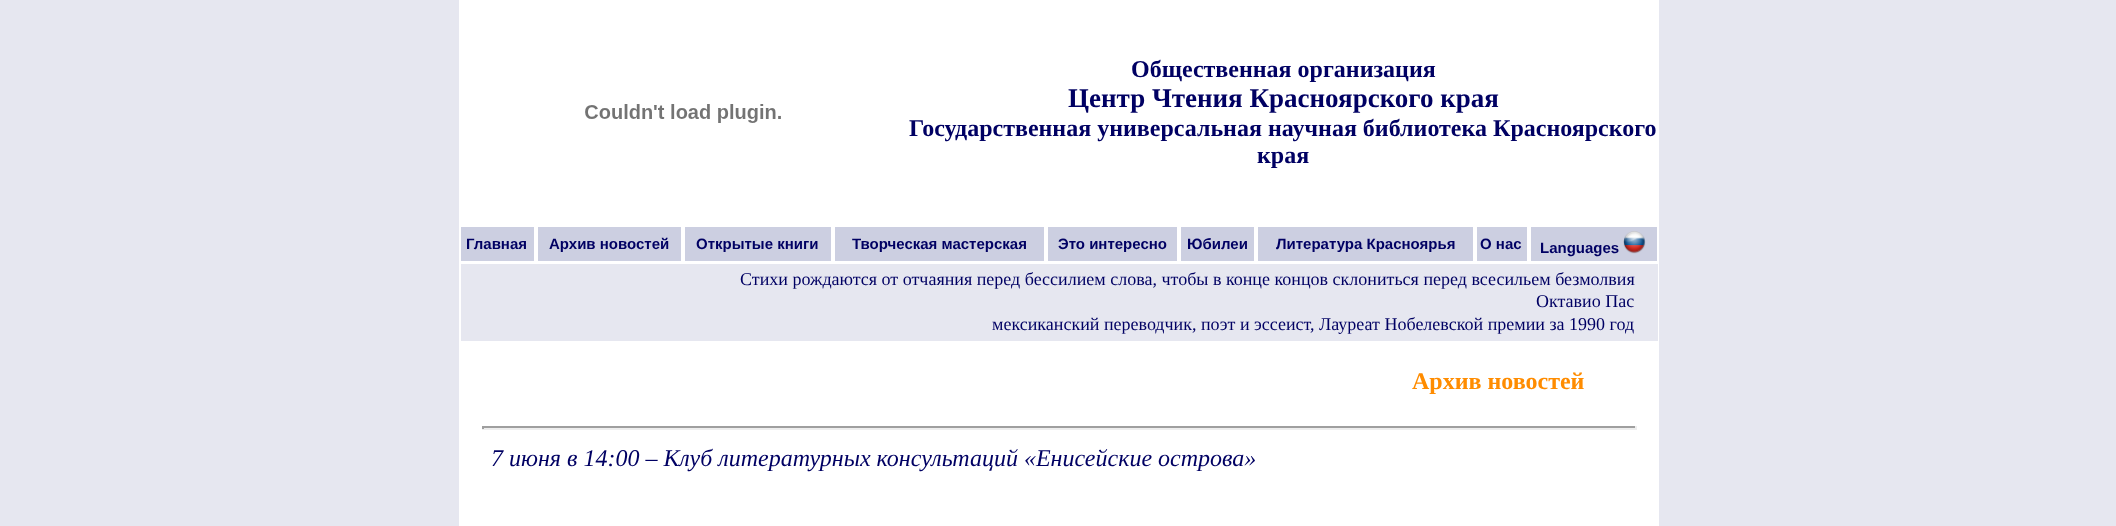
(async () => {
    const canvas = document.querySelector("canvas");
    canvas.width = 2116;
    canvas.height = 526;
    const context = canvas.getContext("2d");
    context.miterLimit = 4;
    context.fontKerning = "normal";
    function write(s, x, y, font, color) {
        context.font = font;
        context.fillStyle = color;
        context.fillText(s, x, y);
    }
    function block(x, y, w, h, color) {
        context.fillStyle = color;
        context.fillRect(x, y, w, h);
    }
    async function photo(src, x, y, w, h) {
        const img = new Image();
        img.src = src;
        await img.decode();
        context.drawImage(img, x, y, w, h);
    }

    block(0, 0, 2116, 526, "rgb(230, 231, 240)");
    block(459, 0, 1200, 225, "rgb(255, 255, 255)");
    await photo("media/1.png", 585, 104, 196, 19);
    write("Общественная организация", 1131, 77, "bold 24px Liberation Serif", "rgb(0, 0, 99)");
    write("Центр Чтения Красноярского края", 1068, 107, "bold 27px Liberation Serif", "rgb(0, 0, 99)");
    write("Государственная универсальная научная библиотека Красноярского", 909, 136, "bold 24px Liberation Serif", "rgb(0, 0, 99)");
    write("края", 1257, 163, "bold 24px Liberation Serif", "rgb(0, 0, 99)");
    block(461, 227, 1196, 34, "rgb(204, 207, 225)");
    context.strokeStyle = "rgb(255, 255, 255)";
    context.lineWidth = 2;
    context.strokeRect(460, 226, 75, 36);
    write("Главная", 466, 249, "bold 15px Liberation Sans", "rgb(0, 0, 99)");
    context.strokeRect(537, 226, 145, 36);
    write("Архив новостей", 549, 249, "bold 15px Liberation Sans", "rgb(0, 0, 99)");
    context.strokeRect(684, 226, 148, 36);
    write("Открытые книги", 696, 249, "bold 15px Liberation Sans", "rgb(0, 0, 99)");
    context.strokeRect(834, 226, 211, 36);
    write("Творческая мастерская", 852, 249, "bold 15px Liberation Sans", "rgb(0, 0, 99)");
    context.strokeRect(1047, 226, 131, 36);
    write("Это интересно", 1058, 249, "bold 15px Liberation Sans", "rgb(0, 0, 99)");
    context.strokeRect(1180, 226, 75, 36);
    write("Юбилеи", 1187, 249, "bold 15px Liberation Sans", "rgb(0, 0, 99)");
    context.strokeRect(1257, 226, 217, 36);
    write("Литература Красноярья", 1276, 249, "bold 15px Liberation Sans", "rgb(0, 0, 99)");
    context.strokeRect(1476, 226, 52, 36);
    write("О нас", 1480, 249, "bold 15px Liberation Sans", "rgb(0, 0, 99)");
    context.strokeRect(1530, 226, 128, 36);
    write("Languages", 1540, 253, "bold 15px Liberation Sans", "rgb(0, 0, 99)");
    await photo("media/2.png", 1623, 231, 23, 23);
    block(459, 263, 1200, 263, "rgb(255, 255, 255)");
    block(461, 264, 1197, 77, "rgb(230, 231, 240)");
    write("Стихи рождаются от отчаяния перед бессилием слова, чтобы в конце концов склониться перед всесильем безмолвия", 740, 285, "18px Liberation Serif", "rgb(0, 0, 99)");
    write("Октавио Пас", 1536, 307, "18px Liberation Serif", "rgb(0, 0, 99)");
    write("мексиканский переводчик, поэт и эссеист, Лауреат Нобелевской премии за 1990 год", 992, 330, "18px Liberation Serif", "rgb(0, 0, 99)");
    write("Архив новостей", 1412, 389, "bold 24px Liberation Serif", "rgb(255, 140, 0)");
    block(482, 426, 1155, 2, "rgb(159, 159, 159)");
    block(1635, 426, 2, 3, "rgb(238, 238, 238)");
    block(482, 428, 1155, 2, "rgb(238, 238, 238)");
    block(482, 426, 2, 3, "rgb(159, 159, 159)");
    write("7 июня в 14:00 – Клуб литературных консультаций «Енисейские острова»", 491, 466, "italic 24px Liberation Serif", "rgb(0, 0, 99)");
})();
